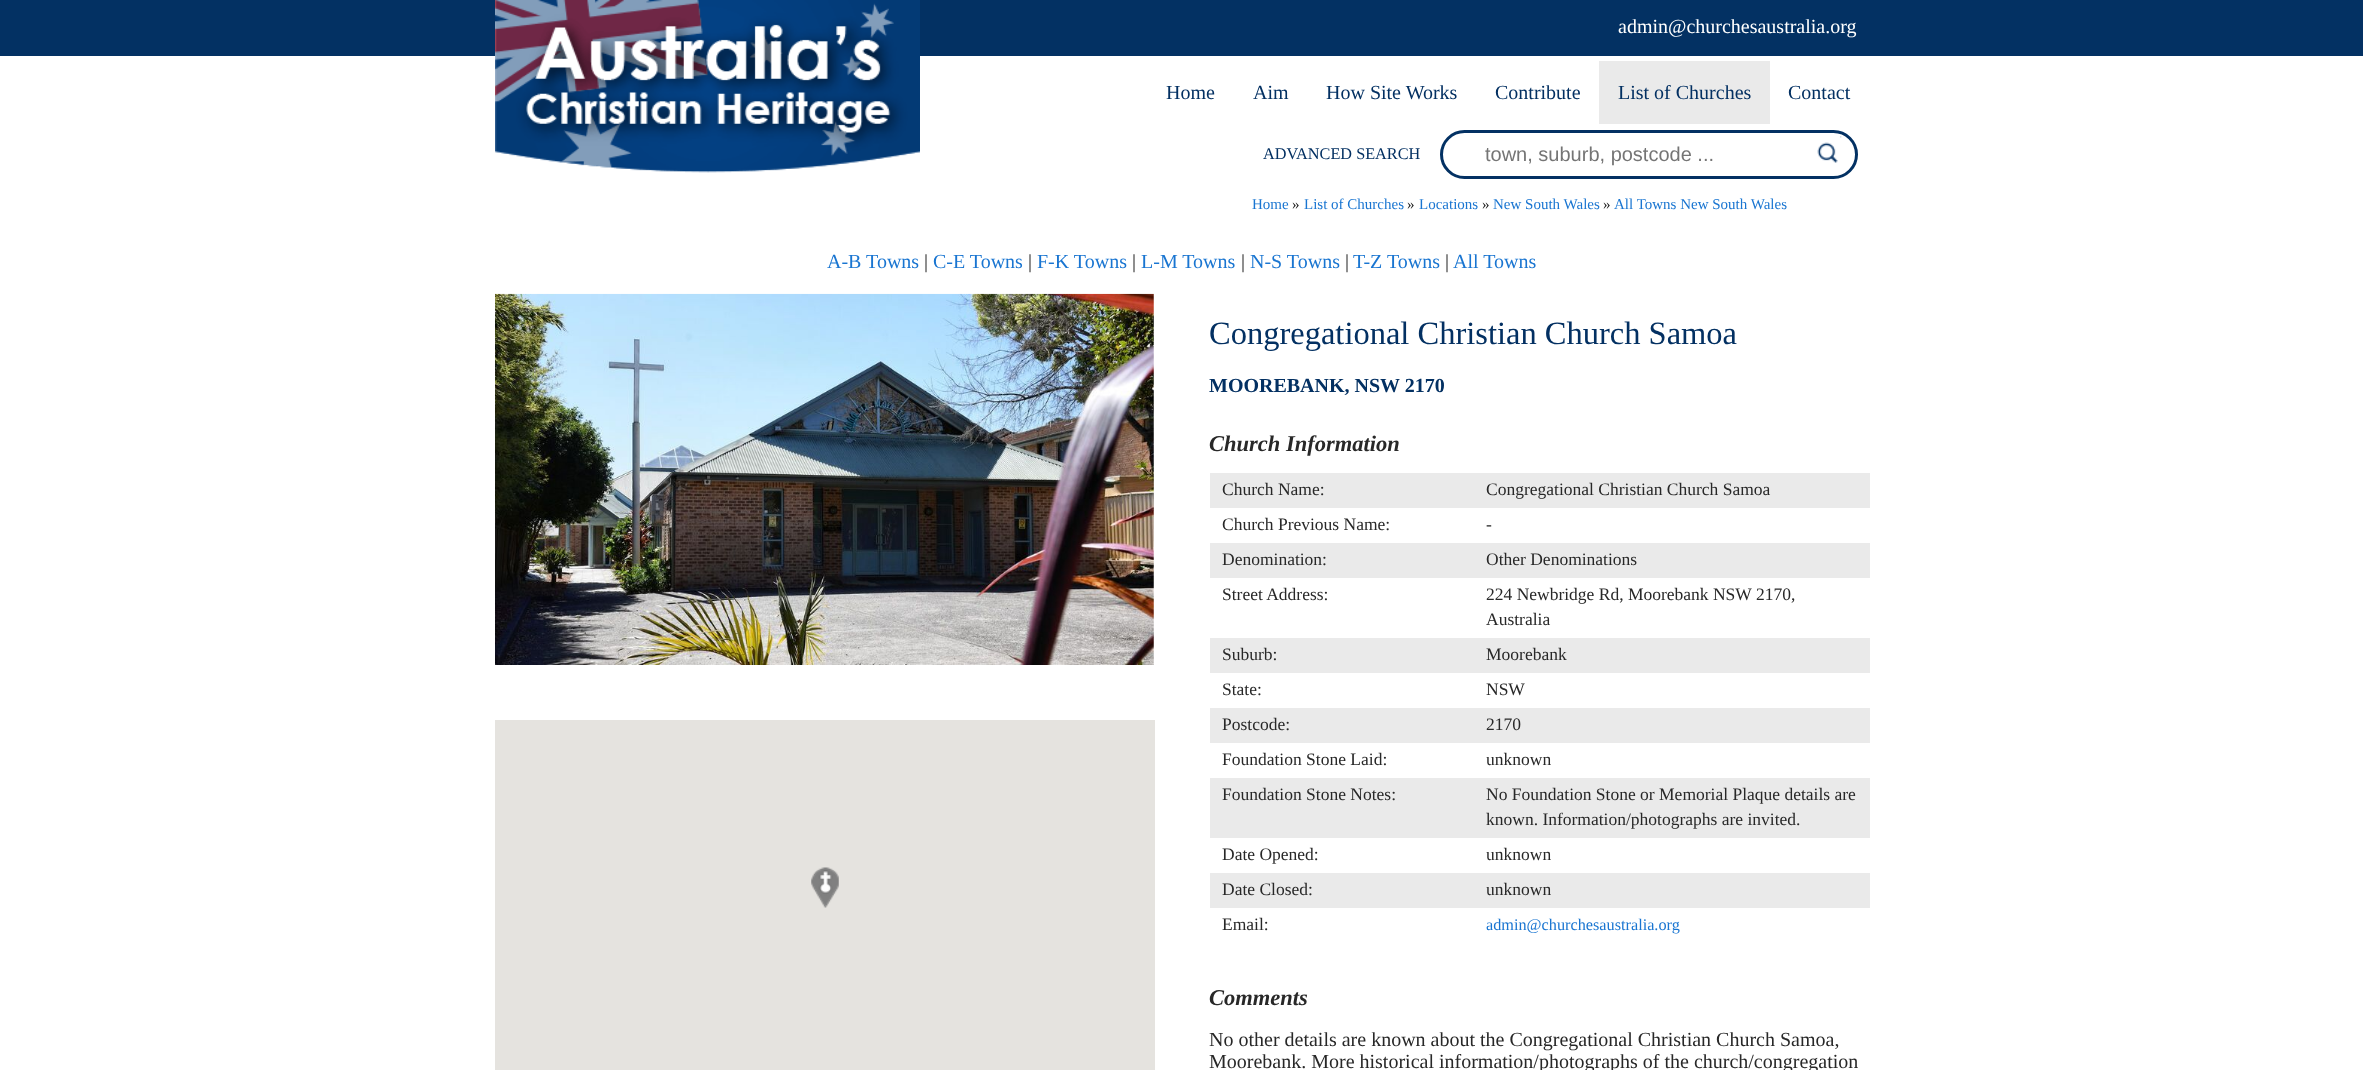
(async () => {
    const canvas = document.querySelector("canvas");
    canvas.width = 2363;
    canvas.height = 1070;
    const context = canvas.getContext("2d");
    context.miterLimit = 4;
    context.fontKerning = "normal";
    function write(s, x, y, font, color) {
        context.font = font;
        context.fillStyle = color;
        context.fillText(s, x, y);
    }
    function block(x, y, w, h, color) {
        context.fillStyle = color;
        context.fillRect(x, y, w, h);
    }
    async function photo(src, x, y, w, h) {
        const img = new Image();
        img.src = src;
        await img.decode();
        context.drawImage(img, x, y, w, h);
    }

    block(0, 0, 2363, 1070, "rgb(255, 255, 255)");
    block(0, 0, 2363, 56, "rgb(3, 49, 99)");
    await photo("media/1.png", 495, 0, 425, 173);
    write("admin@churchesaustralia.org", 1618, 33, "20px Liberation Serif", "rgb(255, 255, 255)");
    write("Home", 1166, 99, "20px Liberation Serif", "rgb(3, 48, 98)");
    write("Aim", 1253, 99, "20px Liberation Serif", "rgb(3, 48, 98)");
    write("How Site Works", 1326, 99, "20px Liberation Serif", "rgb(3, 48, 98)");
    write("Contribute", 1495, 99, "20px Liberation Serif", "rgb(3, 48, 98)");
    block(1599, 61, 171, 63, "rgb(234, 234, 234)");
    write("List of Churches", 1618, 99, "20px Liberation Serif", "rgb(3, 48, 98)");
    write("Contact", 1788, 99, "20px Liberation Serif", "rgb(3, 48, 98)");
    write("ADVANCED SEARCH", 1263, 159, "16.25px Liberation Serif", "rgb(3, 48, 98)");
    context.beginPath();
    context.roundRect(1441.5, 131.5, 415, 46, 23);
    context.strokeStyle = "rgb(3, 49, 99)";
    context.lineWidth = 3;
    context.stroke();
    write("town, suburb, postcode ...", 1485, 161, "20px Liberation Sans", "rgb(117, 117, 117)");
    await photo("media/2.png", 1817, 136, 25, 27);
    write("Home", 1252, 209, "15px Liberation Serif", "rgb(25, 117, 209)");
    write("»", 1292, 209, "15px Liberation Serif", "rgb(34, 34, 34)");
    write("List of Churches", 1304, 209, "15px Liberation Serif", "rgb(25, 117, 209)");
    write("»", 1407, 209, "15px Liberation Serif", "rgb(34, 34, 34)");
    write("Locations", 1419, 209, "15px Liberation Serif", "rgb(25, 117, 209)");
    write("»", 1482, 209, "15px Liberation Serif", "rgb(34, 34, 34)");
    write("New South Wales", 1493, 209, "15px Liberation Serif", "rgb(25, 117, 209)");
    write("»", 1603, 209, "15px Liberation Serif", "rgb(34, 34, 34)");
    write("All Towns New South Wales", 1614, 209, "15px Liberation Serif", "rgb(25, 117, 209)");
    write("A-B Towns", 827, 268, "20px Liberation Serif", "rgb(25, 117, 209)");
    write("|", 924, 268, "20px Liberation Serif", "rgb(34, 34, 34)");
    write("C-E Towns", 933, 268, "20px Liberation Serif", "rgb(25, 117, 209)");
    write("|", 1028, 268, "20px Liberation Serif", "rgb(34, 34, 34)");
    write("F-K Towns", 1037, 268, "20px Liberation Serif", "rgb(25, 117, 209)");
    write("|", 1132, 268, "20px Liberation Serif", "rgb(34, 34, 34)");
    write("L-M Towns", 1141, 268, "20px Liberation Serif", "rgb(25, 117, 209)");
    write("|", 1241, 268, "20px Liberation Serif", "rgb(34, 34, 34)");
    write("N-S Towns", 1250, 268, "20px Liberation Serif", "rgb(25, 117, 209)");
    write("|", 1345, 268, "20px Liberation Serif", "rgb(34, 34, 34)");
    write("T-Z Towns", 1353, 268, "20px Liberation Serif", "rgb(25, 117, 209)");
    write("|", 1445, 268, "20px Liberation Serif", "rgb(34, 34, 34)");
    write("All Towns", 1453, 268, "20px Liberation Serif", "rgb(25, 117, 209)");
    await photo("media/3.png", 495, 293, 659, 372);
    block(495, 720, 660, 350, "rgb(229, 227, 223)");
    await photo("media/4.png", 811, 867, 28, 41);
    write("Congregational Christian Church Samoa", 1209, 344, "32.5px Liberation Serif", "rgb(3, 48, 98)");
    write("MOOREBANK, NSW 2170", 1209, 392, "bold 20px Liberation Serif", "rgb(3, 48, 98)");
    write("Church Information", 1209, 451, "italic bold 22.5px Liberation Serif", "rgb(40, 40, 40)");
    block(1210, 473, 660, 35, "rgb(234, 234, 234)");
    write("Church Name:", 1222, 495, "17.5px Liberation Serif", "rgb(40, 40, 40)");
    write("Congregational Christian Church Samoa", 1486, 495, "17.5px Liberation Serif", "rgb(40, 40, 40)");
    write("Church Previous Name:", 1222, 530, "17.5px Liberation Serif", "rgb(40, 40, 40)");
    write("-", 1486, 530, "17.5px Liberation Serif", "rgb(40, 40, 40)");
    block(1210, 543, 660, 35, "rgb(234, 234, 234)");
    write("Denomination:", 1222, 565, "17.5px Liberation Serif", "rgb(40, 40, 40)");
    write("Other Denominations", 1486, 565, "17.5px Liberation Serif", "rgb(40, 40, 40)");
    write("Street Address:", 1222, 600, "17.5px Liberation Serif", "rgb(40, 40, 40)");
    write("224 Newbridge Rd, Moorebank NSW 2170,", 1486, 600, "17.5px Liberation Serif", "rgb(40, 40, 40)");
    write("Australia", 1486, 625, "17.5px Liberation Serif", "rgb(40, 40, 40)");
    block(1210, 638, 660, 35, "rgb(234, 234, 234)");
    write("Suburb:", 1222, 660, "17.5px Liberation Serif", "rgb(40, 40, 40)");
    write("Moorebank", 1486, 660, "17.5px Liberation Serif", "rgb(40, 40, 40)");
    write("State:", 1222, 695, "17.5px Liberation Serif", "rgb(40, 40, 40)");
    write("NSW", 1486, 695, "17.5px Liberation Serif", "rgb(40, 40, 40)");
    block(1210, 708, 660, 35, "rgb(234, 234, 234)");
    write("Postcode:", 1222, 730, "17.5px Liberation Serif", "rgb(40, 40, 40)");
    write("2170", 1486, 730, "17.5px Liberation Serif", "rgb(40, 40, 40)");
    write("Foundation Stone Laid:", 1222, 765, "17.5px Liberation Serif", "rgb(40, 40, 40)");
    write("unknown", 1486, 765, "17.5px Liberation Serif", "rgb(40, 40, 40)");
    block(1210, 778, 660, 60, "rgb(234, 234, 234)");
    write("Foundation Stone Notes:", 1222, 800, "17.5px Liberation Serif", "rgb(40, 40, 40)");
    write("No Foundation Stone or Memorial Plaque details are", 1486, 800, "17.5px Liberation Serif", "rgb(40, 40, 40)");
    write("known. Information/photographs are invited.", 1486, 825, "17.5px Liberation Serif", "rgb(40, 40, 40)");
    write("Date Opened:", 1222, 860, "17.5px Liberation Serif", "rgb(40, 40, 40)");
    write("unknown", 1486, 860, "17.5px Liberation Serif", "rgb(40, 40, 40)");
    block(1210, 873, 660, 35, "rgb(234, 234, 234)");
    write("Date Closed:", 1222, 895, "17.5px Liberation Serif", "rgb(40, 40, 40)");
    write("unknown", 1486, 895, "17.5px Liberation Serif", "rgb(40, 40, 40)");
    write("Email:", 1222, 930, "17.5px Liberation Serif", "rgb(40, 40, 40)");
    write("admin@churchesaustralia.org", 1486, 930, "16.25px Liberation Serif", "rgb(25, 117, 209)");
    write("Comments", 1209, 1005, "italic bold 22.5px Liberation Serif", "rgb(40, 40, 40)");
    write("No other details are known about the Congregational Christian Church Samoa,", 1209, 1046, "20px Liberation Serif", "rgb(40, 40, 40)");
    write("Moorebank. More historical information/photographs of the church/congregation", 1209, 1068, "20px Liberation Serif", "rgb(40, 40, 40)");
})();
